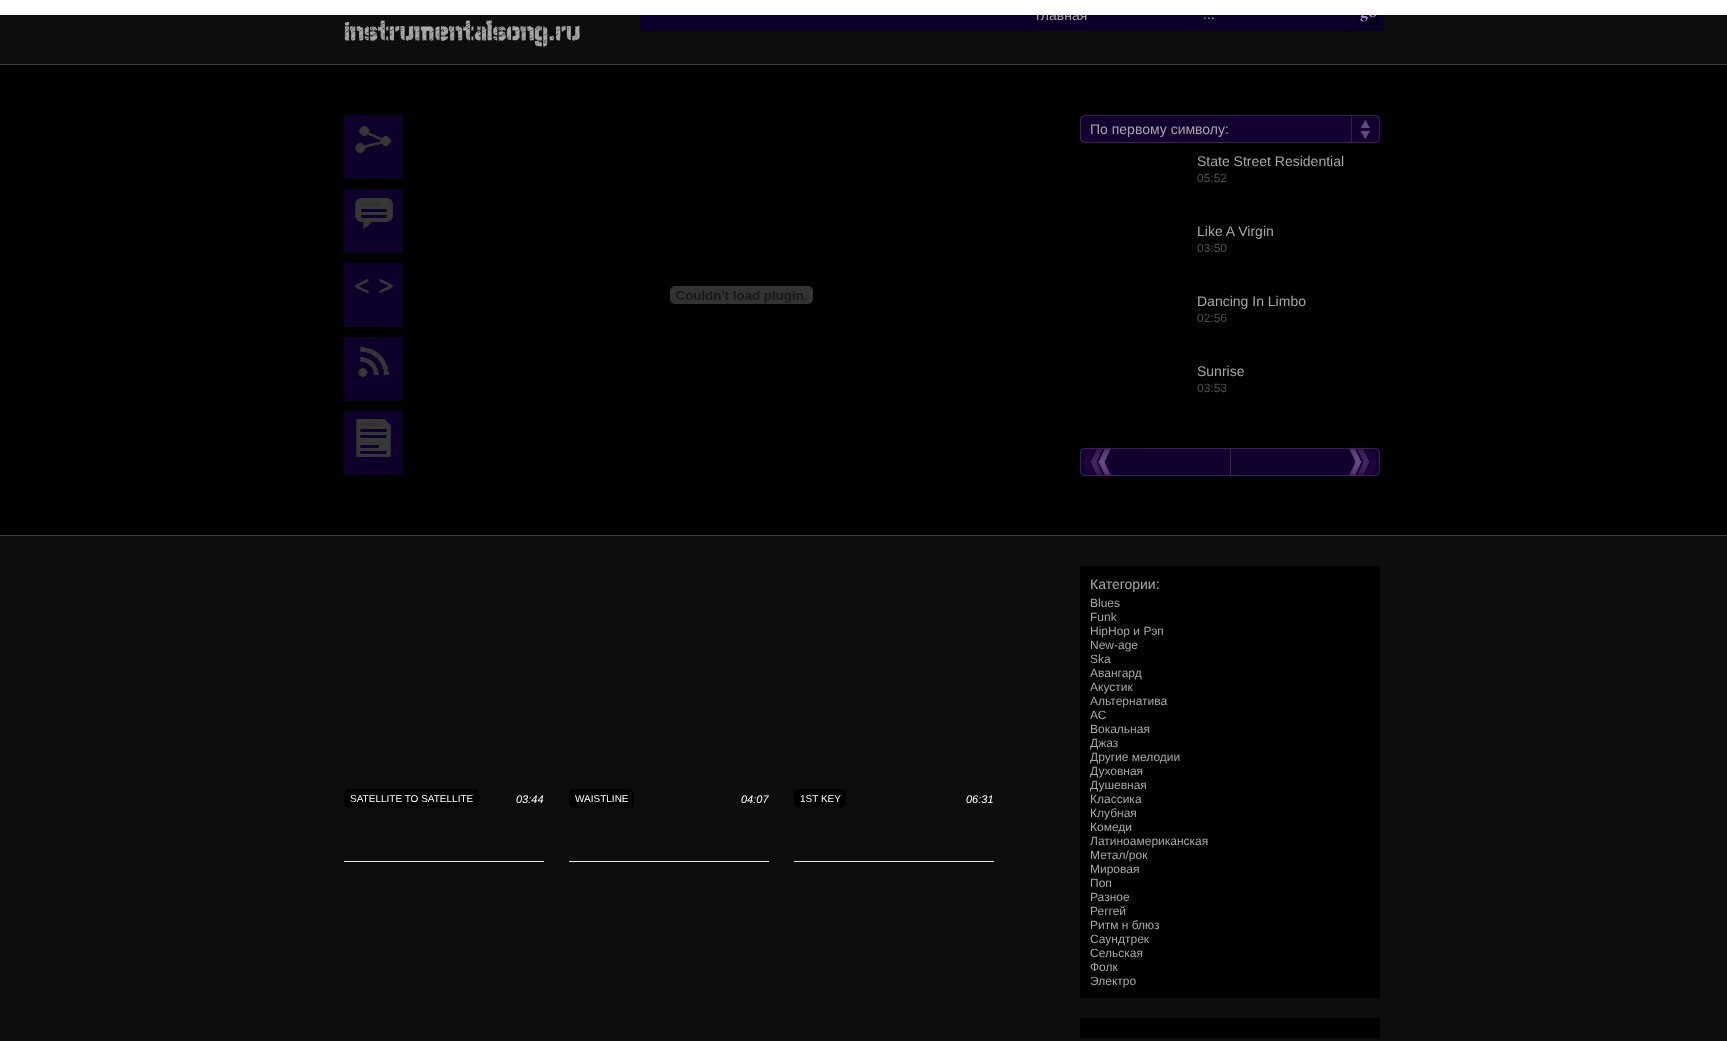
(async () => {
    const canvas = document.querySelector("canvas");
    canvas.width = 1727;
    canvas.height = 1041;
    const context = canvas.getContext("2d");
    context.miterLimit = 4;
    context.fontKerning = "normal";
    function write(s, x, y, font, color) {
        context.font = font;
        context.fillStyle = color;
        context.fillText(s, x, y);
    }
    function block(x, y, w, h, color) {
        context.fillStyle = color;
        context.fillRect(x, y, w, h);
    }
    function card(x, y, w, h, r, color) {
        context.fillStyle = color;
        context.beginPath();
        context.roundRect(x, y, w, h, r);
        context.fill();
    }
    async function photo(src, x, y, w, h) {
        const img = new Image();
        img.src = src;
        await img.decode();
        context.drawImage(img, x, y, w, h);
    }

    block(0, 0, 1727, 1041, "rgb(0, 0, 0)");
    block(0, 15, 1727, 49, "rgb(13, 13, 13)");
    block(640, 15, 744, 16, "rgb(11, 0, 41)");
    write("главная", 1036, 20, "14px Liberation Sans", "rgb(167, 167, 167)");
    block(0, 0, 1727, 15, "rgb(255, 255, 255)");
    block(0, 64, 1727, 1, "rgb(60, 60, 60)");
    write("...", 1203, 19, "14px Liberation Sans", "rgb(167, 167, 167)");
    await photo("media/1.png", 1358, 15, 21, 10);
    await photo("media/2.png", 344, 20, 236, 27);
    await photo("media/3.png", 344, 115, 59, 64);
    await photo("media/4.png", 355, 126, 36, 27);
    await photo("media/5.png", 344, 189, 59, 64);
    await photo("media/6.png", 355, 198, 38, 32);
    await photo("media/7.png", 344, 263, 59, 64);
    await photo("media/8.png", 355, 278, 38, 16);
    await photo("media/9.png", 344, 337, 59, 64);
    await photo("media/10.png", 358, 347, 31, 30);
    await photo("media/11.png", 344, 411, 59, 64);
    await photo("media/12.png", 356, 419, 35, 38);
    await photo("media/13.png", 670, 286, 143, 18);
    await photo("media/14.png", 1080, 115, 271, 28);
    await photo("media/15.png", 1351, 115, 29, 28);
    write("По первому символу:", 1090, 134, "14px Liberation Sans", "rgb(167, 167, 167)");
    write("State Street Residential", 1197, 166, "14px Liberation Sans", "rgb(167, 167, 167)");
    write("05:52", 1197, 182, "12px Liberation Sans", "rgb(86, 80, 80)");
    write("Like A Virgin", 1197, 236, "14px Liberation Sans", "rgb(167, 167, 167)");
    write("03:50", 1197, 252, "12px Liberation Sans", "rgb(86, 80, 80)");
    write("Dancing In Limbo", 1197, 306, "14px Liberation Sans", "rgb(167, 167, 167)");
    write("02:56", 1197, 322, "12px Liberation Sans", "rgb(86, 80, 80)");
    write("Sunrise", 1197, 376, "14px Liberation Sans", "rgb(167, 167, 167)");
    write("03:53", 1197, 392, "12px Liberation Sans", "rgb(86, 80, 80)");
    await photo("media/16.png", 1080, 448, 150, 28);
    await photo("media/17.png", 1230, 448, 150, 28);
    block(0, 536, 1727, 505, "rgb(13, 13, 13)");
    block(0, 535, 1727, 1, "rgb(60, 60, 60)");
    block(344, 861, 200, 1, "rgb(234, 234, 234)");
    card(344, 789, 135, 19, 5, "rgb(0, 0, 0)");
    write("SATELLITE TO SATELLITE", 350, 802, "10px Liberation Sans", "rgb(255, 255, 255)");
    write("03:44", 516, 803, "italic 11px Liberation Sans", "rgb(255, 255, 255)");
    block(569, 861, 200, 1, "rgb(234, 234, 234)");
    card(569, 789, 65, 19, 5, "rgb(0, 0, 0)");
    write("WAISTLINE", 575, 802, "10px Liberation Sans", "rgb(255, 255, 255)");
    write("04:07", 741, 803, "italic 11px Liberation Sans", "rgb(255, 255, 255)");
    block(794, 861, 200, 1, "rgb(234, 234, 234)");
    card(794, 789, 52, 19, 5, "rgb(0, 0, 0)");
    write("1ST KEY", 800, 802, "10px Liberation Sans", "rgb(255, 255, 255)");
    write("06:31", 966, 803, "italic 11px Liberation Sans", "rgb(255, 255, 255)");
    block(1080, 566, 300, 432, "rgb(0, 0, 0)");
    write("Категории:", 1090, 589, "14px Liberation Sans", "rgb(167, 167, 167)");
    write("Blues", 1090, 607, "12px Liberation Sans", "rgb(167, 167, 167)");
    write("Funk", 1090, 621, "12px Liberation Sans", "rgb(167, 167, 167)");
    write("HipHop и Рэп", 1090, 635, "12px Liberation Sans", "rgb(167, 167, 167)");
    write("New-age", 1090, 649, "12px Liberation Sans", "rgb(167, 167, 167)");
    write("Ska", 1090, 663, "12px Liberation Sans", "rgb(167, 167, 167)");
    write("Авангард", 1090, 677, "12px Liberation Sans", "rgb(167, 167, 167)");
    write("Акустик", 1090, 691, "12px Liberation Sans", "rgb(167, 167, 167)");
    write("Альтернатива", 1090, 705, "12px Liberation Sans", "rgb(167, 167, 167)");
    write("АС", 1090, 719, "12px Liberation Sans", "rgb(167, 167, 167)");
    write("Вокальная", 1090, 733, "12px Liberation Sans", "rgb(167, 167, 167)");
    write("Джаз", 1090, 747, "12px Liberation Sans", "rgb(167, 167, 167)");
    write("Другие мелодии", 1090, 761, "12px Liberation Sans", "rgb(167, 167, 167)");
    write("Духовная", 1090, 775, "12px Liberation Sans", "rgb(167, 167, 167)");
    write("Душевная", 1090, 789, "12px Liberation Sans", "rgb(167, 167, 167)");
    write("Классика", 1090, 803, "12px Liberation Sans", "rgb(167, 167, 167)");
    write("Клубная", 1090, 817, "12px Liberation Sans", "rgb(167, 167, 167)");
    write("Комеди", 1090, 831, "12px Liberation Sans", "rgb(167, 167, 167)");
    write("Латиноамериканская", 1090, 845, "12px Liberation Sans", "rgb(167, 167, 167)");
    write("Метал/рок", 1090, 859, "12px Liberation Sans", "rgb(167, 167, 167)");
    write("Мировая", 1090, 873, "12px Liberation Sans", "rgb(167, 167, 167)");
    write("Поп", 1090, 887, "12px Liberation Sans", "rgb(167, 167, 167)");
    write("Разное", 1090, 901, "12px Liberation Sans", "rgb(167, 167, 167)");
    write("Реггей", 1090, 915, "12px Liberation Sans", "rgb(167, 167, 167)");
    write("Ритм н блюз", 1090, 929, "12px Liberation Sans", "rgb(167, 167, 167)");
    write("Саундтрек", 1090, 943, "12px Liberation Sans", "rgb(167, 167, 167)");
    write("Сельская", 1090, 957, "12px Liberation Sans", "rgb(167, 167, 167)");
    write("Фолк", 1090, 971, "12px Liberation Sans", "rgb(167, 167, 167)");
    write("Электро", 1090, 985, "12px Liberation Sans", "rgb(167, 167, 167)");
    block(1080, 1018, 300, 20, "rgb(0, 0, 0)");
})();
